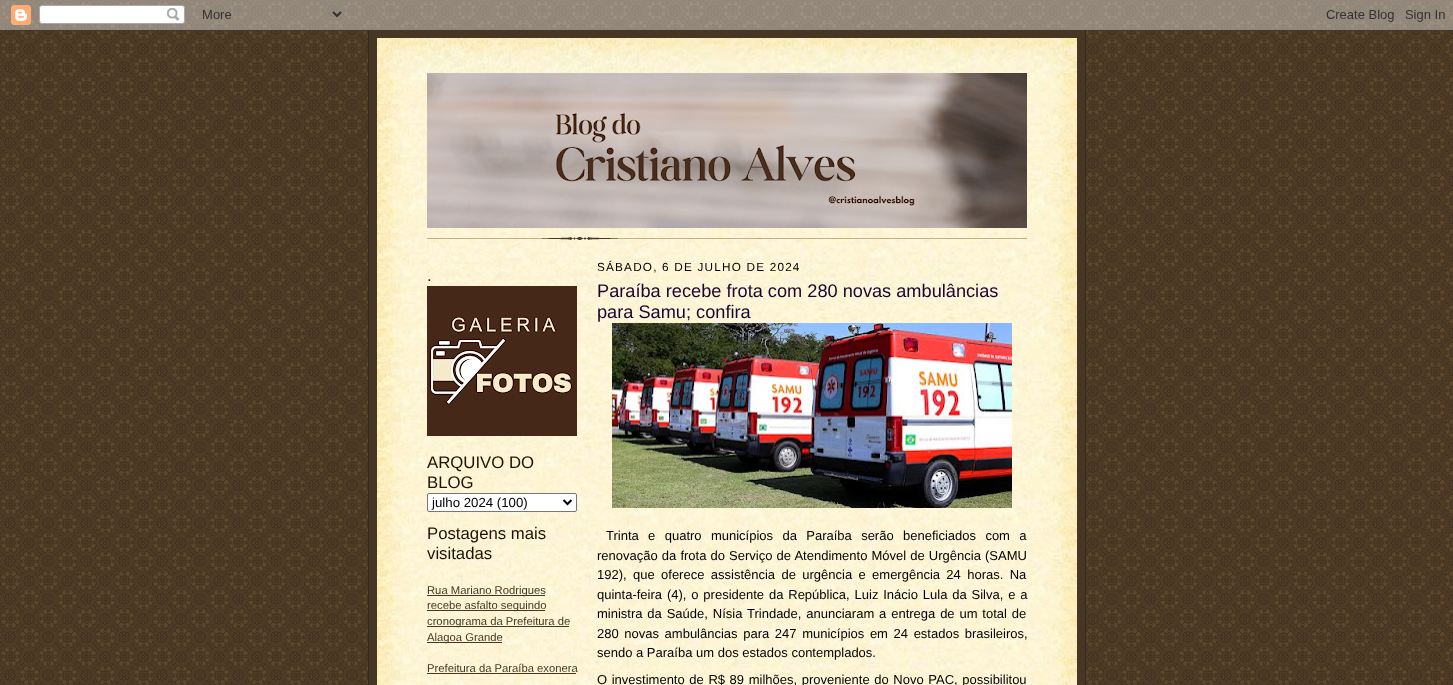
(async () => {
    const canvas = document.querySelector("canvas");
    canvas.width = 1453;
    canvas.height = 685;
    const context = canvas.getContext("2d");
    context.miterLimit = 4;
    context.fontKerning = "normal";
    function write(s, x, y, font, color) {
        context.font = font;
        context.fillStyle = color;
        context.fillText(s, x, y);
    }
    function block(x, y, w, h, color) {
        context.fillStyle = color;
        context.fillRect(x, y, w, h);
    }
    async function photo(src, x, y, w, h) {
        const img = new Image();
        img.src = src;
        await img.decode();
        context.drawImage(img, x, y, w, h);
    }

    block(0, 0, 1453, 685, "rgb(255, 255, 255)");
    await photo("media/1.png", 0, 0, 1453, 685);
    await photo("media/2.png", 0, 0, 1453, 30);
    block(369, 30, 716, 655, "rgb(71, 54, 36)");
    block(1085, 30, 1, 655, "rgb(51, 42, 36)");
    block(368, 30, 1, 655, "rgb(51, 42, 36)");
    await photo("media/3.png", 377, 38, 700, 35);
    await photo("media/4.png", 377, 73, 700, 612);
    await photo("media/5.png", 427, 237, 600, 3);
    await photo("media/6.png", 427, 73, 600, 155);
    write(".", 427, 281, "16.75px Liberation Sans", "rgb(33, 17, 4)");
    await photo("media/7.png", 427, 286, 150, 150);
    write("ARQUIVO DO", 427, 468, "16.75px Liberation Sans", "rgb(33, 17, 4)");
    write("BLOG", 427, 488, "16.75px Liberation Sans", "rgb(33, 17, 4)");
    context.fillStyle = "rgb(255, 255, 255)";
    context.beginPath();
    context.roundRect(427.5, 493.5, 149, 18, 1.5);
    context.fill();
    context.strokeStyle = "rgb(118, 118, 118)";
    context.stroke();
    context.beginPath();
    context.moveTo(563.5, 500);
    context.lineTo(567.5, 504);
    context.lineTo(571.5, 500);
    context.strokeStyle = "rgb(0, 0, 0)";
    context.lineWidth = 2;
    context.stroke();
    write("julho 2024 (100)", 432, 507, "13.25px Liberation Sans", "rgb(0, 0, 0)");
    write("Postagens mais", 427, 539, "16.75px Liberation Sans", "rgb(33, 17, 4)");
    write("visitadas", 427, 559, "16.75px Liberation Sans", "rgb(33, 17, 4)");
    block(427, 595, 118, 1, "rgb(71, 54, 36)");
    write("Rua Mariano Rodrigues", 427, 594, "11.25px Liberation Sans", "rgb(71, 54, 36)");
    block(427, 610, 118, 1, "rgb(71, 54, 36)");
    write("recebe asfalto seguindo", 427, 609, "11.25px Liberation Sans", "rgb(71, 54, 36)");
    block(427, 626, 142, 1, "rgb(71, 54, 36)");
    write("cronograma da Prefeitura de", 427, 625, "11.25px Liberation Sans", "rgb(71, 54, 36)");
    block(427, 642, 75, 1, "rgb(71, 54, 36)");
    write("Alagoa Grande", 427, 641, "11.25px Liberation Sans", "rgb(71, 54, 36)");
    write("Prefeitura da Paraíba exonera", 427, 672, "11.25px Liberation Sans", "rgb(71, 54, 36)");
    block(427, 673, 149, 1, "rgb(71, 54, 36)");
    context.letterSpacing = "1.2px";
    write("SÁBADO, 6 DE JULHO DE 2024", 597, 271, "11.75px Liberation Sans", "rgb(0, 0, 0)");
    context.letterSpacing = "0px";
    write("Paraíba recebe frota com 280 novas ambulâncias", 597, 297, "18.2px Liberation Sans", "rgb(27, 4, 49)");
    write("para Samu; confira", 597, 318, "18.2px Liberation Sans", "rgb(27, 4, 49)");
    await photo("media/8.png", 612, 323, 400, 185);
    context.wordSpacing = "5.75px";
    write("Trinta e quatro municípios da Paraíba serão beneficiados com a", 606, 540, "13px Liberation Sans", "rgb(0, 0, 0)");
    context.wordSpacing = "0.5px";
    write("renovação da frota do Serviço de Atendimento Móvel de Urgência (SAMU", 597, 560, "13px Liberation Sans", "rgb(0, 0, 0)");
    context.wordSpacing = "2.75px";
    write("192), que oferece assistência de urgência e emergência 24 horas. Na", 597, 579, "13px Liberation Sans", "rgb(0, 0, 0)");
    context.wordSpacing = "1.25px";
    write("quinta-feira (4), o presidente da República, Luiz Inácio Lula da Silva, e a", 597, 599, "13px Liberation Sans", "rgb(0, 0, 0)");
    write("ministra da Saúde, Nísia Trindade, anunciaram a entrega de um total de", 597, 618, "13px Liberation Sans", "rgb(0, 0, 0)");
    context.wordSpacing = "2px";
    write("280 novas ambulâncias para 247 municípios em 24 estados brasileiros,", 597, 638, "13px Liberation Sans", "rgb(0, 0, 0)");
    context.wordSpacing = "0px";
    write("sendo a Paraíba um dos estados contemplados.", 597, 657, "13px Liberation Sans", "rgb(0, 0, 0)");
    context.wordSpacing = "1px";
    write("O investimento de R$ 89 milhões, proveniente do Novo PAC, possibilitou", 597, 684, "13px Liberation Sans", "rgb(0, 0, 0)");
})();
